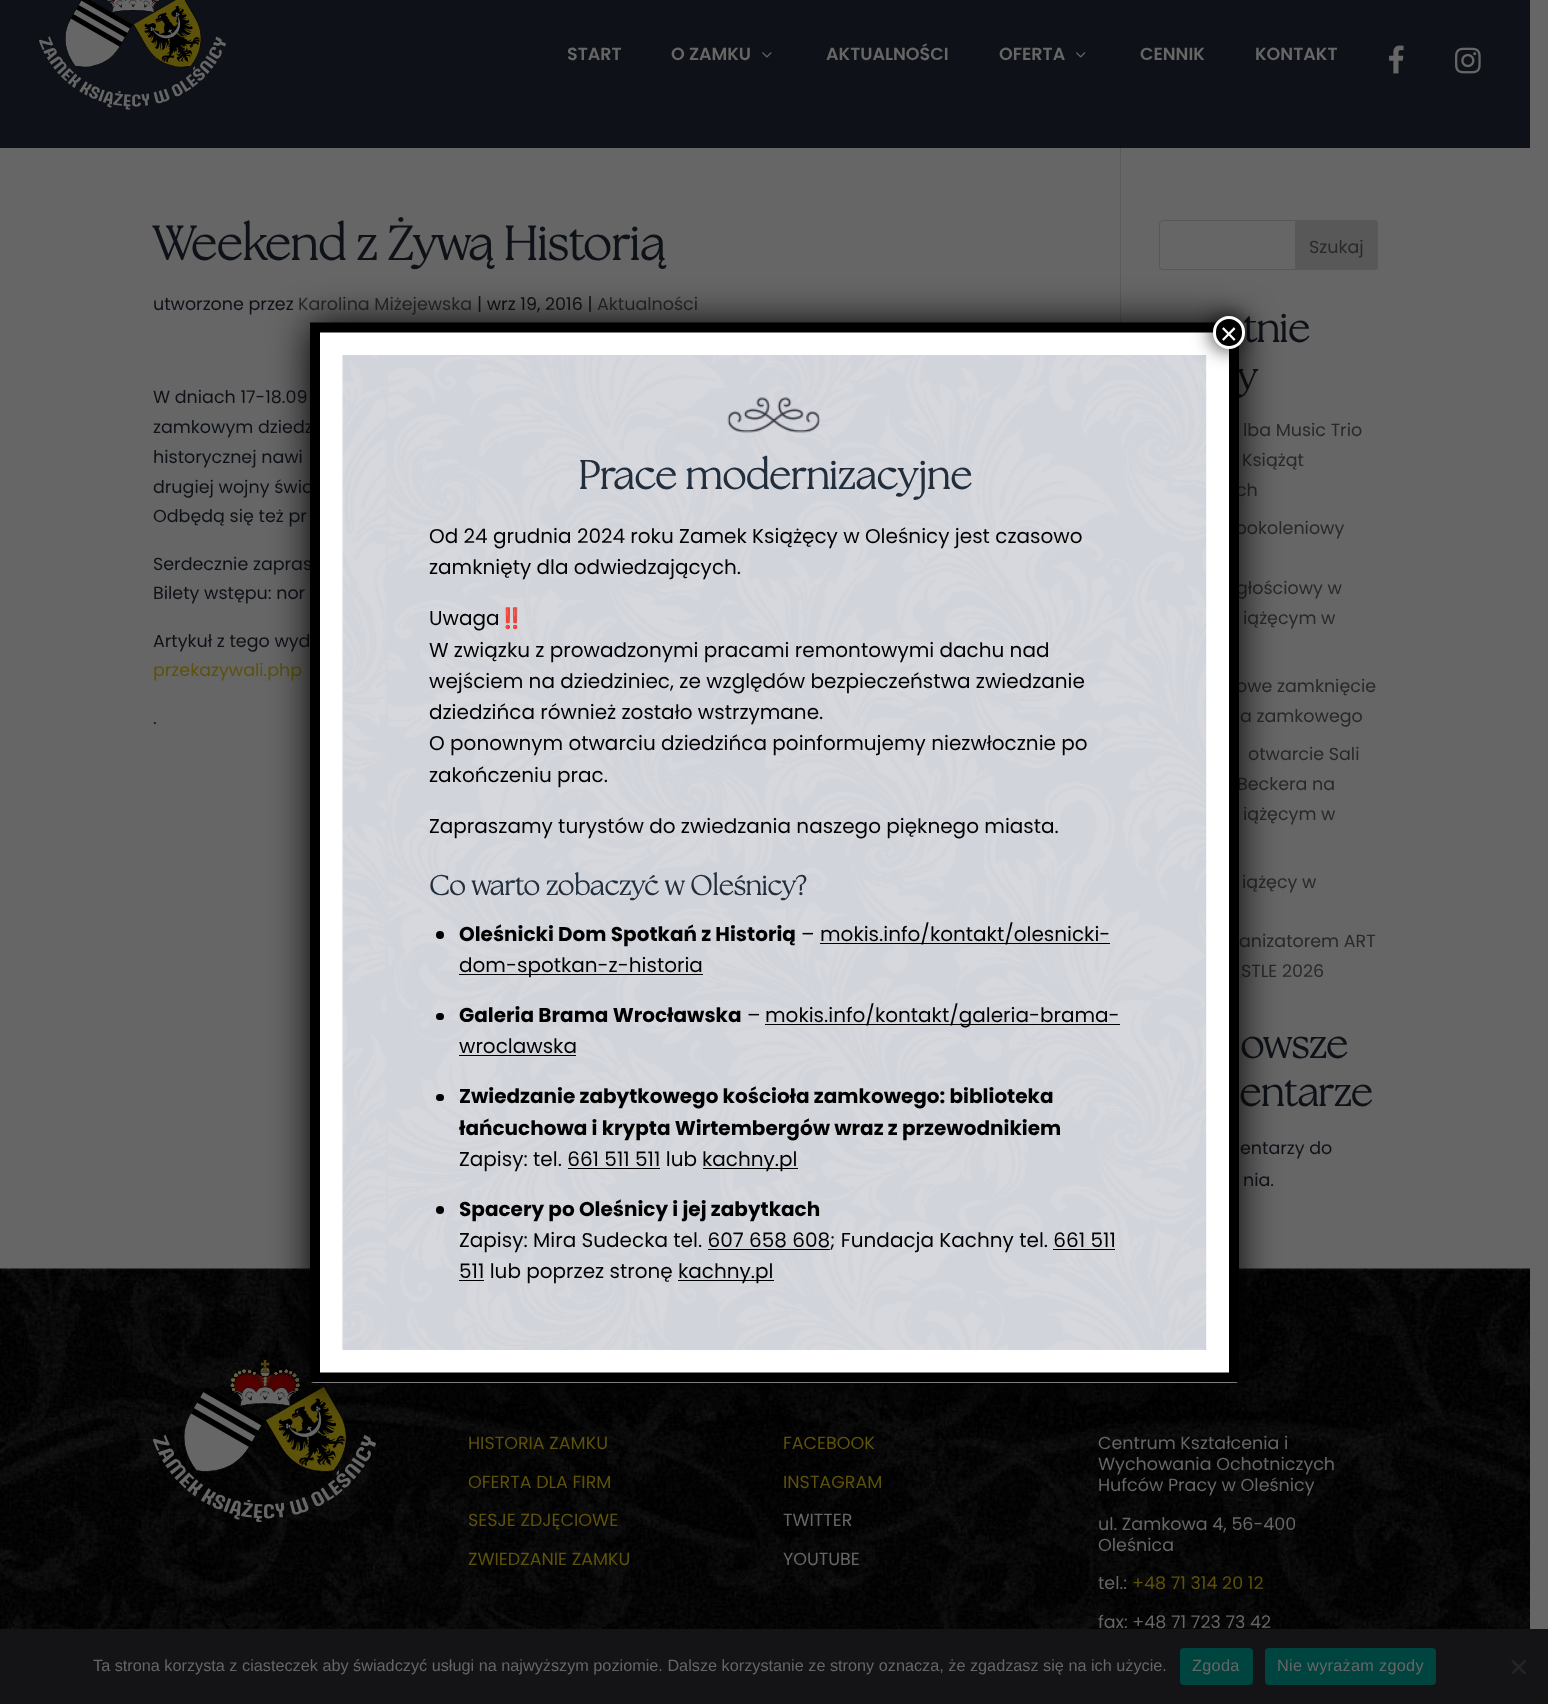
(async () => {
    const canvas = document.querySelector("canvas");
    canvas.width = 1548;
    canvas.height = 1704;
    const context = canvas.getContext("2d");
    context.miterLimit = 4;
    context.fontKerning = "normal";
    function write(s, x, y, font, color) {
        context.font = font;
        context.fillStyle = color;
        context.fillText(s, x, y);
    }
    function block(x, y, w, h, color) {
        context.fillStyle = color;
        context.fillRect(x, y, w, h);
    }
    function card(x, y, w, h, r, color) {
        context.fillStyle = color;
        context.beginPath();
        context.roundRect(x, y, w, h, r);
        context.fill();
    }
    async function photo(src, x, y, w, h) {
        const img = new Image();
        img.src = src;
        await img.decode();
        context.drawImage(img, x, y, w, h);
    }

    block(0, 0, 1548, 1704, "rgb(102, 102, 102)");
    block(0, 0, 1530, 148, "rgb(14, 18, 24)");
    await photo("media/1.png", 39, 0, 187, 110);
    write("START", 567, 60, "600 17.5px Poppins", "rgb(102, 102, 102)");
    write("O ZAMKU", 671, 60, "600 17.5px Poppins", "rgb(102, 102, 102)");
    await photo("media/2.png", 762, 52, 10, 6);
    write("AKTUALNOŚCI", 826, 60, "600 17.5px Poppins", "rgb(102, 102, 102)");
    write("OFERTA", 999, 60, "600 17.5px Poppins", "rgb(102, 102, 102)");
    await photo("media/3.png", 1076, 52, 10, 6);
    write("CENNIK", 1140, 60, "600 17.5px Poppins", "rgb(102, 102, 102)");
    write("KONTAKT", 1255, 60, "600 17.5px Poppins", "rgb(102, 102, 102)");
    await photo("media/4.png", 1389, 45, 15, 29);
    await photo("media/5.png", 1455, 47, 26, 27);
    block(1120, 148, 1, 175, "rgb(90, 90, 90)");
    write("Weekend z Żywą Historią", 153, 260, "bold 47.5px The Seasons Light", "rgb(14, 18, 24)");
    write("utworzone przez", 153, 310, "17.5px Poppins", "rgb(14, 18, 24)");
    write("Karolina Miżejewska", 298, 310, "17.5px Poppins", "rgb(41, 41, 41)");
    write("| wrz 19, 2016 |", 477, 310, "17.5px Poppins", "rgb(14, 18, 24)");
    write("Aktualności", 597, 310, "17.5px Poppins", "rgb(41, 41, 41)");
    write("W dniach 17-18.09", 153, 403, "17.5px Poppins", "rgb(14, 18, 24)");
    write("zamkowym dziedz", 153, 433, "17.5px Poppins", "rgb(14, 18, 24)");
    write("historycznej nawi", 153, 463, "17.5px Poppins", "rgb(14, 18, 24)");
    write("drugiej wojny świa", 153, 493, "17.5px Poppins", "rgb(14, 18, 24)");
    write("Odbędą się też pr", 153, 522, "17.5px Poppins", "rgb(14, 18, 24)");
    write("Serdecznie zapras", 153, 570, "17.5px Poppins", "rgb(14, 18, 24)");
    write("Bilety wstępu: nor", 153, 599, "17.5px Poppins", "rgb(14, 18, 24)");
    write("Artykuł z tego wyd", 153, 647, "17.5px Poppins", "rgb(14, 18, 24)");
    write("przekazywali.php", 153, 676, "17.5px Poppins", "rgb(93, 82, 9)");
    write(".", 153, 724, "17.5px Poppins", "rgb(14, 18, 24)");
    context.beginPath();
    context.roundRect(1159.5, 220.5, 218, 49, 3.5);
    context.strokeStyle = "rgb(88, 88, 88)";
    context.stroke();
    context.fillStyle = "rgb(88, 88, 88)";
    context.beginPath();
    context.roundRect(1295, 220, 83, 50, [0, 4, 4, 0]);
    context.fill();
    write("Szukaj", 1309, 253, "17.5px Poppins", "rgb(41, 41, 41)");
    write("tnie", 1243, 342, "bold 40px The Seasons Light", "rgb(14, 18, 24)");
    write("y", 1237, 390, "bold 40px The Seasons Light", "rgb(14, 18, 24)");
    write("lba Music Trio", 1243, 436, "17.5px Poppins", "rgb(41, 41, 41)");
    write("Książąt", 1242, 466, "17.5px Poppins", "rgb(41, 41, 41)");
    write("ch", 1236, 496, "17.5px Poppins", "rgb(41, 41, 41)");
    write("pokoleniowy", 1235, 534, "17.5px Poppins", "rgb(41, 41, 41)");
    write("głościowy w", 1236, 594, "17.5px Poppins", "rgb(41, 41, 41)");
    write("iążęcym w", 1243, 624, "17.5px Poppins", "rgb(41, 41, 41)");
    write("owe zamknięcie", 1236, 692, "17.5px Poppins", "rgb(41, 41, 41)");
    write("a zamkowego", 1240, 722, "17.5px Poppins", "rgb(41, 41, 41)");
    write("otwarcie Sali", 1248, 760, "17.5px Poppins", "rgb(41, 41, 41)");
    write("Beckera na", 1237, 790, "17.5px Poppins", "rgb(41, 41, 41)");
    write("iążęcym w", 1243, 820, "17.5px Poppins", "rgb(41, 41, 41)");
    write("iążęcy w", 1242, 888, "17.5px Poppins", "rgb(41, 41, 41)");
    write("anizatorem ART", 1239, 947, "17.5px Poppins", "rgb(41, 41, 41)");
    write("STLE 2026", 1241, 977, "17.5px Poppins", "rgb(41, 41, 41)");
    write("owsze", 1240, 1058, "bold 40px The Seasons Light", "rgb(14, 18, 24)");
    write("entarze", 1239, 1106, "bold 40px The Seasons Light", "rgb(14, 18, 24)");
    write("entarzy do", 1240, 1154, "17.5px Poppins", "rgb(14, 18, 24)");
    write("nia.", 1243, 1186, "17.5px Poppins", "rgb(14, 18, 24)");
    await photo("media/6.png", 0, 1268, 1530, 361);
    await photo("media/7.png", 153, 1360, 223, 162);
    write("HISTORIA ZAMKU", 468, 1449, "17.5px Poppins", "rgb(93, 82, 9)");
    write("OFERTA DLA FIRM", 468, 1488, "17.5px Poppins", "rgb(93, 82, 9)");
    write("SESJE ZDJĘCIOWE", 468, 1526, "17.5px Poppins", "rgb(93, 82, 9)");
    write("ZWIEDZANIE ZAMKU", 468, 1565, "17.5px Poppins", "rgb(93, 82, 9)");
    write("FACEBOOK", 783, 1449, "17.5px Poppins", "rgb(93, 82, 9)");
    write("INSTAGRAM", 783, 1488, "17.5px Poppins", "rgb(93, 82, 9)");
    write("TWITTER", 783, 1526, "17.5px Poppins", "rgb(102, 102, 102)");
    write("YOUTUBE", 783, 1565, "17.5px Poppins", "rgb(102, 102, 102)");
    write("Centrum Kształcenia i", 1098, 1449, "17.5px Poppins", "rgb(102, 102, 102)");
    write("Wychowania Ochotniczych", 1098, 1470, "17.5px Poppins", "rgb(102, 102, 102)");
    write("Hufców Pracy w Oleśnicy", 1098, 1491, "17.5px Poppins", "rgb(102, 102, 102)");
    write("ul. Zamkowa 4, 56-400", 1098, 1530, "17.5px Poppins", "rgb(102, 102, 102)");
    write("Oleśnica", 1098, 1551, "17.5px Poppins", "rgb(102, 102, 102)");
    write("tel.:", 1098, 1589, "17.5px Poppins", "rgb(102, 102, 102)");
    write("+48 71 314 20 12", 1132, 1589, "17.5px Poppins", "rgb(93, 82, 9)");
    write("fax: +48 71 723 73 42", 1098, 1628, "17.5px Poppins", "rgb(102, 102, 102)");
    context.fillStyle = "rgb(2, 2, 2)";
    context.filter = "blur(19px)";
    context.beginPath();
    context.roundRect(310, 323, 929, 1060, 4);
    context.fill();
    context.filter = "none";
    card(310, 323, 929, 1060, 4, "rgb(255, 255, 255)");
    context.beginPath();
    context.moveTo(315, 327.5);
    context.lineTo(1234, 327.5);
    context.lineTo(1234, 1377.5);
    context.lineTo(315, 1377.5);
    context.closePath();
    context.strokeStyle = "rgb(0, 0, 0)";
    context.lineWidth = 10;
    context.stroke();
    await photo("media/8.png", 342, 355, 865, 995);
    context.fillStyle = "rgba(2, 2, 2, 0.75)";
    context.filter = "blur(9.5px)";
    context.beginPath();
    context.roundRect(1211, 315, 35, 35, 17.5);
    context.fill();
    context.filter = "none";
    context.fillStyle = "rgb(0, 0, 0)";
    context.beginPath();
    context.roundRect(1214.5, 317.5, 29, 30, 14.5);
    context.fill();
    context.strokeStyle = "rgb(255, 255, 255)";
    context.lineWidth = 3;
    context.stroke();
    write("×", 1220, 344, "30px Liberation Sans", "rgb(255, 255, 255)");
    await photo("media/9.png", 727, 397, 94, 36);
    write("Prace modernizacyjne", 578, 489, "bold 40px The Seasons Light", "rgb(35, 46, 61)");
    write("Od 24 grudnia 2024 roku Zamek Książęcy w Oleśnicy jest czasowo", 429, 543, "20px Poppins", "rgb(0, 0, 0)");
    write("zamknięty dla odwiedzających.", 429, 574, "20px Poppins", "rgb(0, 0, 0)");
    write("Uwaga", 429, 625, "20px Poppins", "rgb(0, 0, 0)");
    write("‼️", 499, 625, "20px Noto Color Emoji", "rgb(0, 0, 0)");
    write("W związku z prowadzonymi pracami remontowymi dachu nad", 429, 657, "20px Poppins", "rgb(0, 0, 0)");
    write("wejściem na dziedziniec, ze względów bezpieczeństwa zwiedzanie", 429, 688, "20px Poppins", "rgb(0, 0, 0)");
    write("dziedzińca również zostało wstrzymane.", 429, 719, "20px Poppins", "rgb(0, 0, 0)");
    write("O ponownym otwarciu dziedzińca poinformujemy niezwłocznie po", 429, 750, "20px Poppins", "rgb(0, 0, 0)");
    write("zakończeniu prac.", 429, 782, "20px Poppins", "rgb(0, 0, 0)");
    write("Zapraszamy turystów do zwiedzania naszego pięknego miasta.", 429, 833, "20px Poppins", "rgb(0, 0, 0)");
    write("Co warto zobaczyć w Oleśnicy?", 429, 895, "bold 27.5px The Seasons Light", "rgb(35, 46, 61)");
    context.fillStyle = "rgb(0, 0, 0)";
    context.beginPath();
    context.arc(440, 935, 4, 0, Math.PI * 2);
    context.fill();
    write("Oleśnicki Dom Spotkań z Historią", 459, 941, "bold 20px Poppins", "rgb(0, 0, 0)");
    write("–", 801, 941, "20px Poppins", "rgb(0, 0, 0)");
    block(820, 943, 290, 1, "rgb(0, 0, 0)");
    write("mokis.info/kontakt/olesnicki-", 820, 941, "20px Poppins", "rgb(0, 0, 0)");
    block(459, 974, 244, 1, "rgb(0, 0, 0)");
    write("dom-spotkan-z-historia", 459, 972, "20px Poppins", "rgb(0, 0, 0)");
    card(436, 1013, 8, 7, 3.5, "rgb(0, 0, 0)");
    write("Galeria Brama Wrocławska", 459, 1022, "bold 20px Poppins", "rgb(0, 0, 0)");
    write("–", 747, 1022, "20px Poppins", "rgb(0, 0, 0)");
    block(765, 1024, 355, 1, "rgb(0, 0, 0)");
    write("mokis.info/kontakt/galeria-brama-", 765, 1022, "20px Poppins", "rgb(0, 0, 0)");
    write("wroclawska", 459, 1053, "20px Poppins", "rgb(0, 0, 0)");
    block(459, 1055, 117, 1, "rgb(0, 0, 0)");
    card(436, 1094, 8, 7, 3.5, "rgb(0, 0, 0)");
    write("Zwiedzanie zabytkowego kościoła zamkowego: biblioteka", 459, 1103, "bold 20px Poppins", "rgb(0, 0, 0)");
    write("łańcuchowa i krypta Wirtembergów wraz z przewodnikiem", 459, 1135, "bold 20px Poppins", "rgb(0, 0, 0)");
    write("Zapisy: tel. 661 511 511 lub", 459, 1166, "20px Poppins", "rgb(0, 0, 0)");
    block(703, 1168, 95, 1, "rgb(0, 0, 0)");
    write("kachny.pl", 702, 1166, "20px Poppins", "rgb(0, 0, 0)");
    block(568, 1168, 92, 1, "rgb(0, 0, 0)");
    context.beginPath();
    context.arc(440, 1210, 4, 0, Math.PI * 2);
    context.fill();
    write("Spacery po Oleśnicy i jej zabytkach", 459, 1216, "bold 20px Poppins", "rgb(0, 0, 0)");
    write("Zapisy: Mira Sudecka tel. 607 658 608; Fundacja Kachny tel. 661 511", 459, 1247, "20px Poppins", "rgb(0, 0, 0)");
    block(708, 1249, 122, 1, "rgb(0, 0, 0)");
    block(459, 1280, 25, 1, "rgb(0, 0, 0)");
    write("511 lub poprzez stronę", 459, 1278, "20px Poppins", "rgb(0, 0, 0)");
    block(1053, 1249, 62, 1, "rgb(0, 0, 0)");
    block(678, 1280, 96, 1, "rgb(0, 0, 0)");
    write("kachny.pl", 678, 1278, "20px Poppins", "rgb(0, 0, 0)");
    block(0, 1629, 1548, 75, "rgb(20, 20, 23)");
    write("Ta strona korzysta z ciasteczek aby świadczyć usługi na najwyższym poziomie. Dalsze korzystanie ze strony oznacza, że zgadzasz się na ich użycie.", 93, 1671, "16.25px Liberation Sans", "rgb(102, 102, 102)");
    card(1180, 1648, 73, 37, 4, "rgb(0, 68, 63)");
    context.letterSpacing = "0.3px";
    write("Zgoda", 1192, 1671, "16.25px Liberation Sans", "rgb(102, 102, 102)");
    card(1265, 1648, 171, 37, 4, "rgb(0, 68, 63)");
    write("Nie wyrażam zgody", 1277, 1671, "16.25px Liberation Sans", "rgb(102, 102, 102)");
    context.fillStyle = "rgb(36, 36, 37)";
    context.beginPath();
    context.moveTo(1524.5, 1659.5);
    context.lineTo(1526.5, 1661.5);
    context.lineTo(1513, 1674.5);
    context.lineTo(1511, 1673);
    context.closePath();
    context.fill();
    context.beginPath();
    context.moveTo(1511, 1661.5);
    context.lineTo(1513, 1659.5);
    context.lineTo(1526.5, 1673);
    context.lineTo(1524.5, 1674.5);
    context.closePath();
    context.fill();
})();
